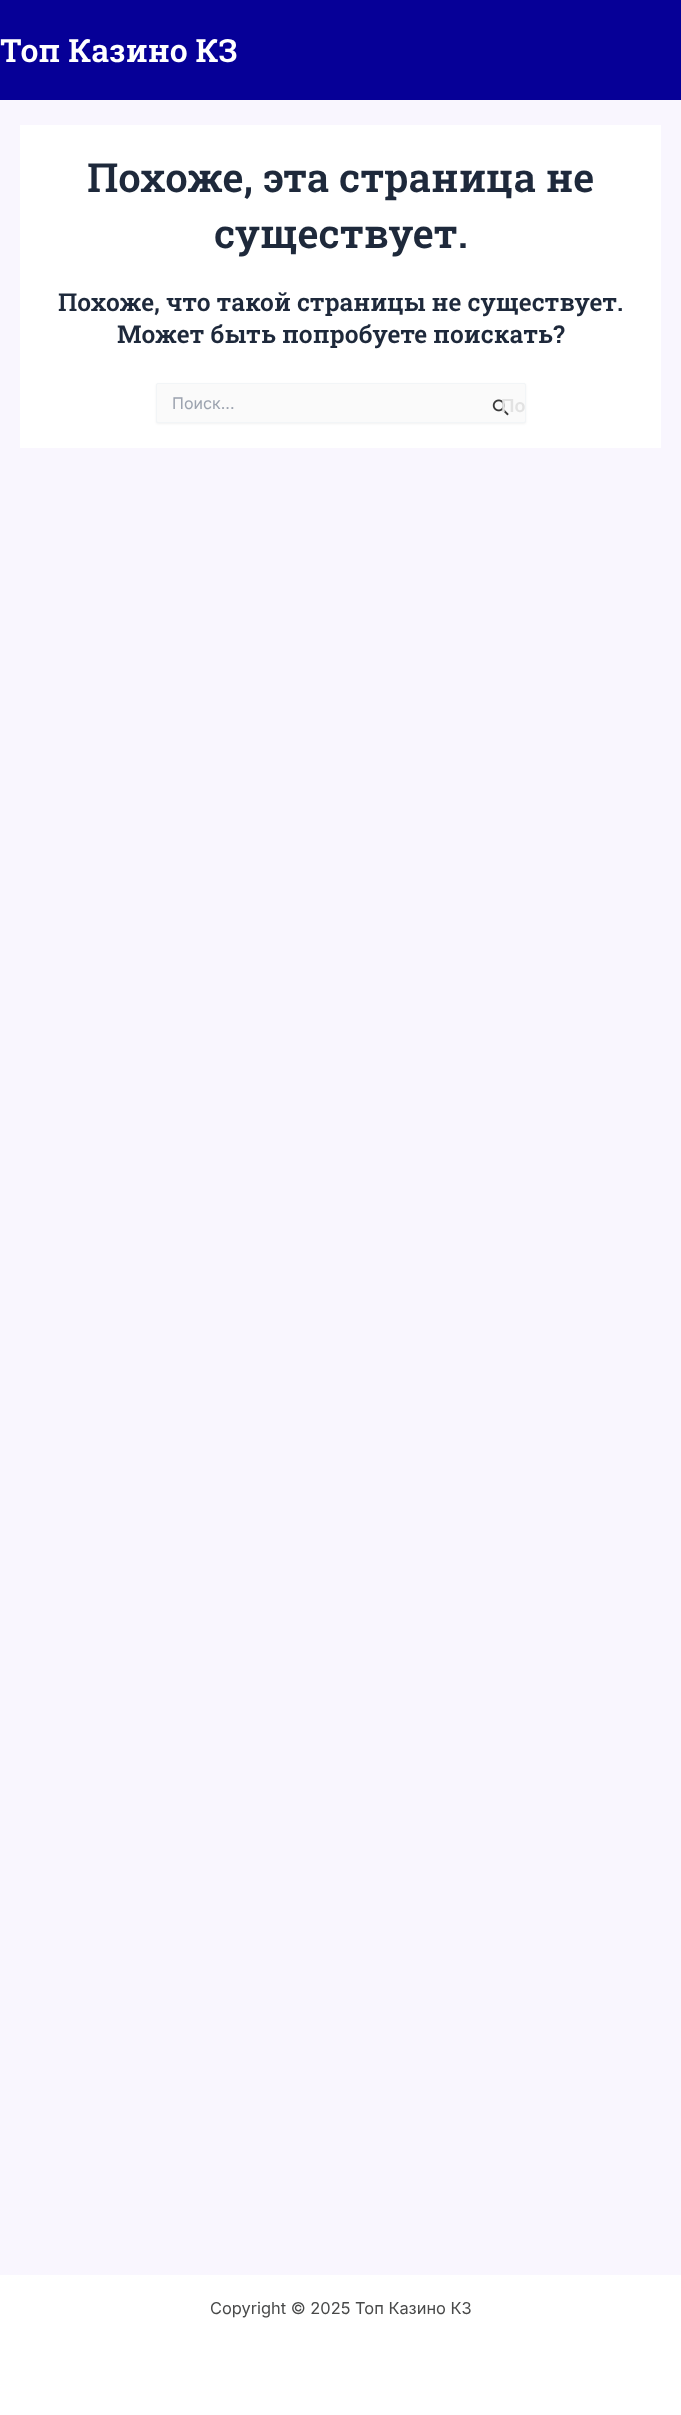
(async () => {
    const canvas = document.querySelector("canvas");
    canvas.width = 681;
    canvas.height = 2415;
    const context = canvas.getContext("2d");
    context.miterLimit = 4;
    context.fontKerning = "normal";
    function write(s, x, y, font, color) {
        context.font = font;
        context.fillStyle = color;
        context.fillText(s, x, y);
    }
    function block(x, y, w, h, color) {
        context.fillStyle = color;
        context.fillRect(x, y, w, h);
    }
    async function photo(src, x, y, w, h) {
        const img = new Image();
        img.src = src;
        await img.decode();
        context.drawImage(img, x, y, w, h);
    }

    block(0, 0, 681, 2415, "rgb(249, 246, 254)");
    block(0, 0, 681, 100, "rgb(6, 0, 151)");
    write("Топ Казино КЗ", 0, 62, "600 32px Roboto Slab", "rgb(255, 255, 255)");
    block(20, 125, 641, 323, "rgb(255, 255, 255)");
    write("Похоже, эта страница не", 87, 192, "600 40.1px Roboto Slab", "rgb(30, 41, 59)");
    write("существует.", 214, 248, "600 40.1px Roboto Slab", "rgb(30, 41, 59)");
    write("Похоже, что такой страницы не существует.", 58, 311, "600 24.6px Roboto Slab", "rgb(30, 41, 59)");
    write("Может быть попробуете поискать?", 117, 343, "600 24.6px Roboto Slab", "rgb(30, 41, 59)");
    context.fillStyle = "rgba(0, 0, 0, 0.05)";
    context.filter = "blur(1px)";
    context.beginPath();
    context.roundRect(156, 384, 370, 40, 2);
    context.fill();
    context.filter = "none";
    context.fillStyle = "rgb(250, 250, 250)";
    context.beginPath();
    context.roundRect(156.5, 383.5, 369, 39, 1.5);
    context.fill();
    context.strokeStyle = "rgb(242, 245, 247)";
    context.stroke();
    write("Поиск...", 172, 409, "16px Inter", "rgb(156, 163, 175)");
    await photo("media/1.png", 492, 399, 17, 17);
    write("По", 501, 412, "600 18px Inter", "rgb(226, 226, 226)");
    block(0, 2275, 681, 140, "rgb(255, 255, 255)");
    write("Copyright © 2025 Топ Казино КЗ", 210, 2314, "16.4px Inter", "rgb(72, 73, 73)");
})();
